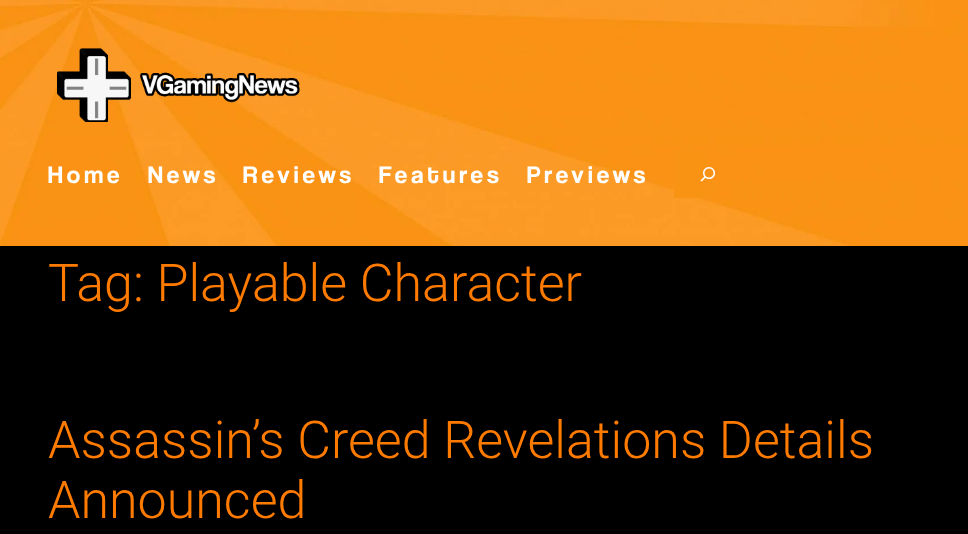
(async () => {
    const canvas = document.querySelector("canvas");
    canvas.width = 968;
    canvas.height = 534;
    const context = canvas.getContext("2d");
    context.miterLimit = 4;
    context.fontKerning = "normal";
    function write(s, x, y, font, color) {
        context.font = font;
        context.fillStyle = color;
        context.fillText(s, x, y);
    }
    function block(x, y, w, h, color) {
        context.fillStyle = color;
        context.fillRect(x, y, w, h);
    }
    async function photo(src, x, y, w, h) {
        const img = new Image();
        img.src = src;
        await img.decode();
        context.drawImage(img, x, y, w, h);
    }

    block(0, 0, 968, 534, "rgb(0, 0, 0)");
    await photo("media/1.png", 0, 0, 968, 246);
    await photo("media/2.png", 57, 48, 243, 74);
    context.letterSpacing = "4px";
    write("Home", 48, 183, "25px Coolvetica", "rgb(255, 255, 255)");
    write("News", 148, 183, "25px Coolvetica", "rgb(255, 255, 255)");
    write("Reviews", 243, 183, "25px Coolvetica", "rgb(255, 255, 255)");
    write("Features", 379, 183, "25px Coolvetica", "rgb(255, 255, 255)");
    write("Previews", 527, 183, "25px Coolvetica", "rgb(255, 255, 255)");
    block(674, 150, 33, 48, "rgb(249, 147, 20)");
    await photo("media/3.png", 700, 167, 16, 15);
    context.letterSpacing = "0px";
    write("Tag: Playable Character", 48, 301, "300 52px Roboto", "rgb(255, 123, 0)");
    write("Assassin’s Creed Revelations Details", 48, 458, "300 52px Roboto", "rgb(255, 123, 0)");
    write("Announced", 48, 518, "300 52px Roboto", "rgb(255, 123, 0)");
})();
